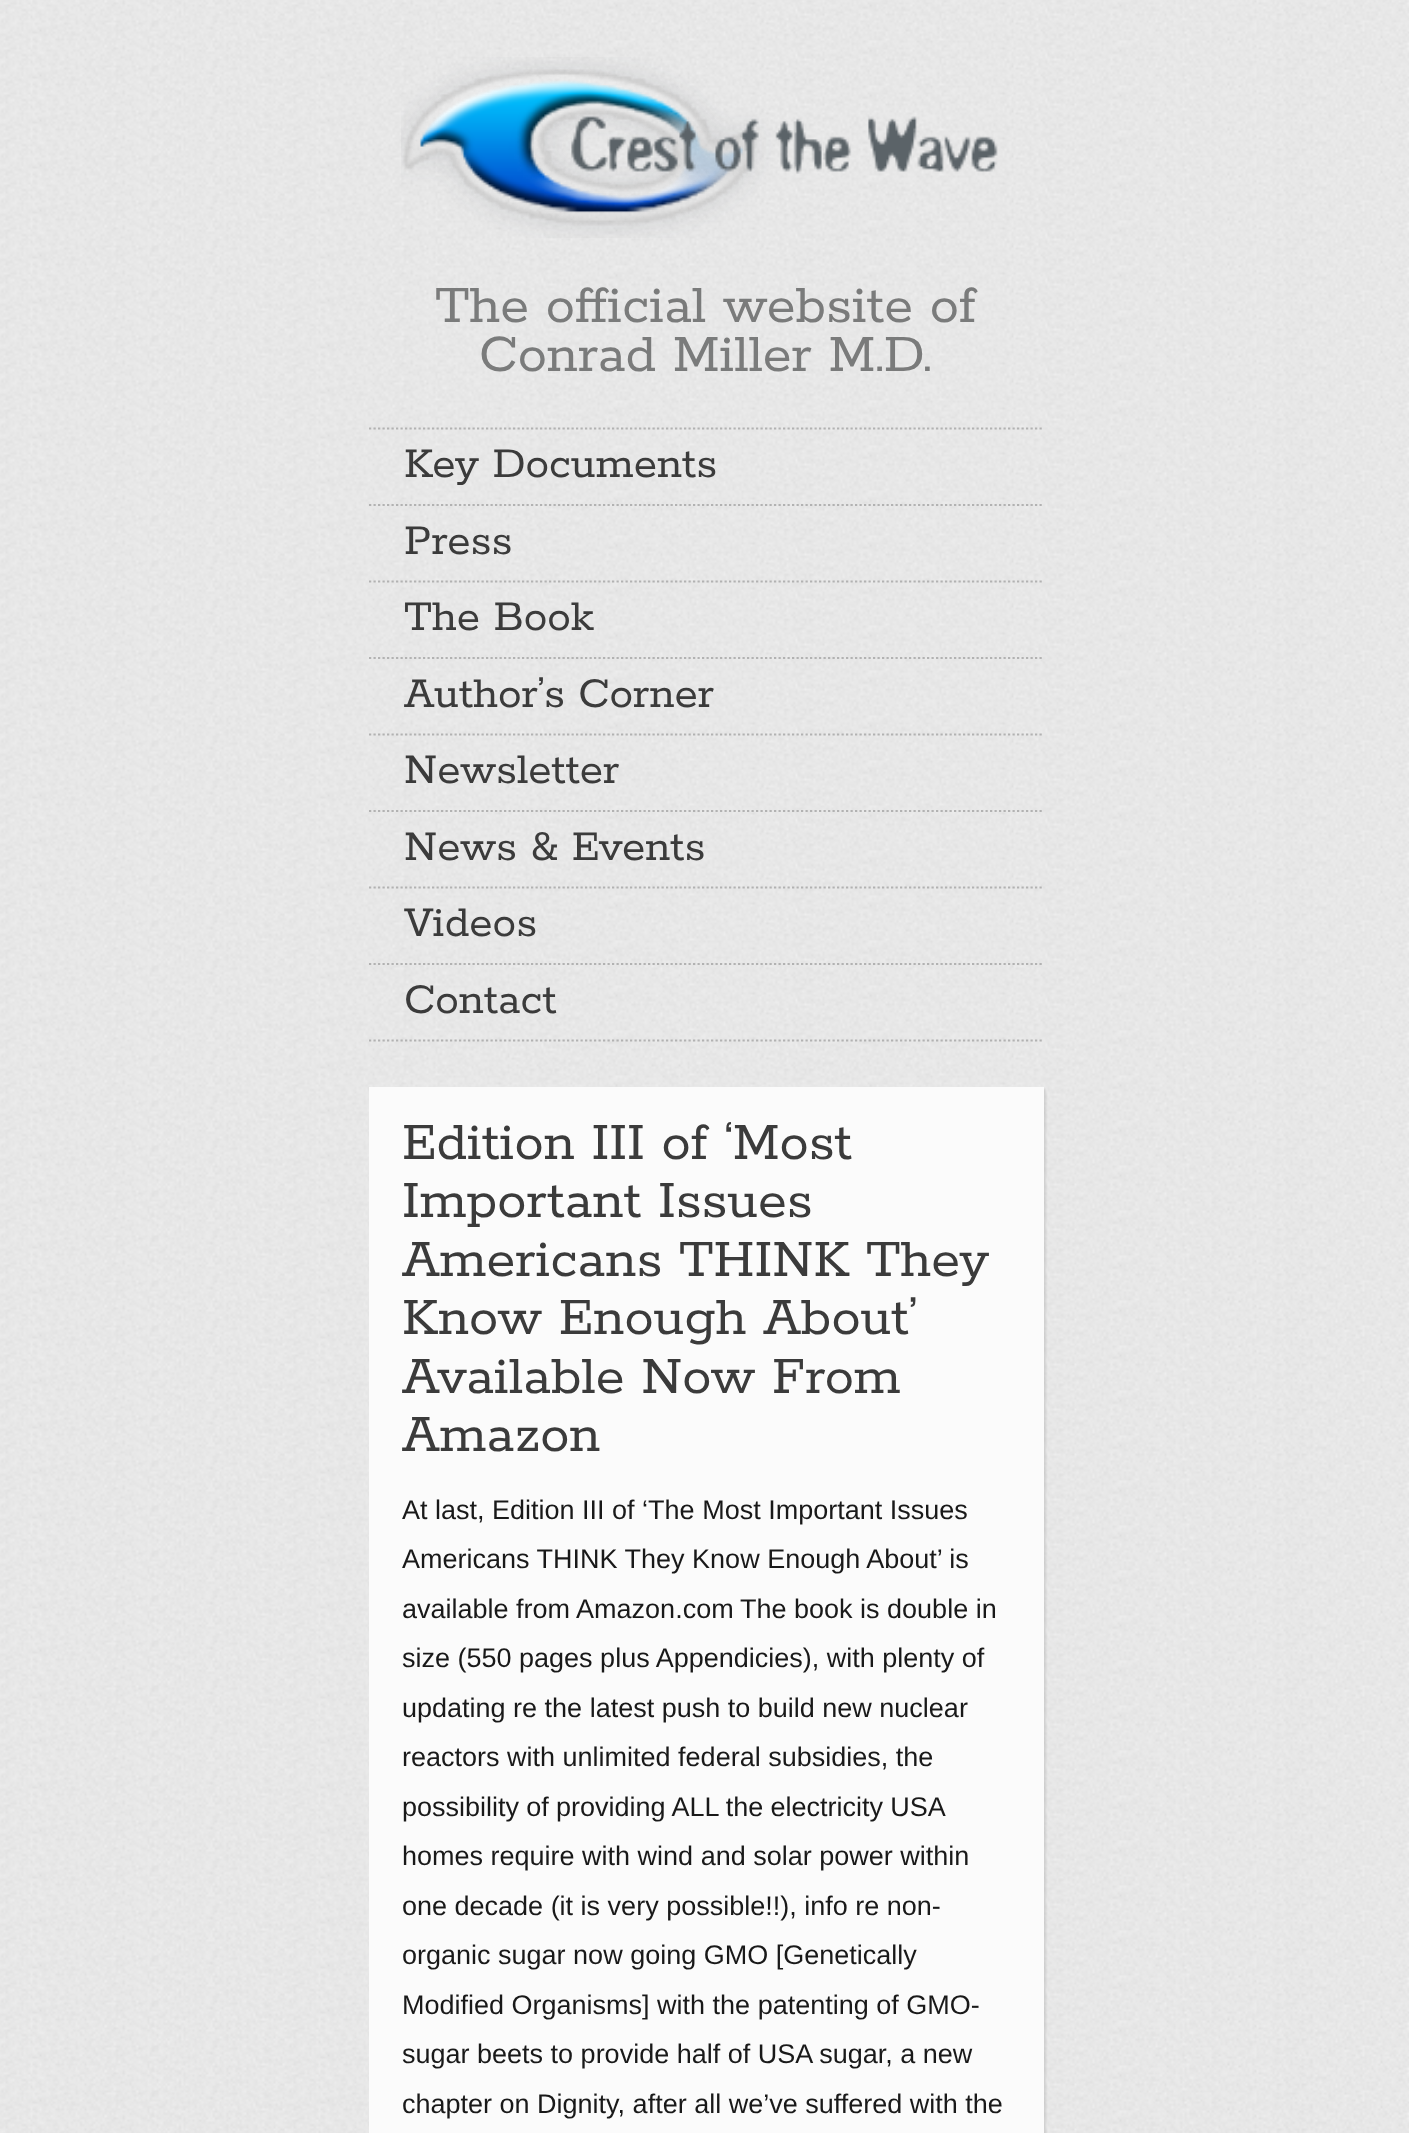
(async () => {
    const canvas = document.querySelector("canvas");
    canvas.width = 1409;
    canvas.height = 2133;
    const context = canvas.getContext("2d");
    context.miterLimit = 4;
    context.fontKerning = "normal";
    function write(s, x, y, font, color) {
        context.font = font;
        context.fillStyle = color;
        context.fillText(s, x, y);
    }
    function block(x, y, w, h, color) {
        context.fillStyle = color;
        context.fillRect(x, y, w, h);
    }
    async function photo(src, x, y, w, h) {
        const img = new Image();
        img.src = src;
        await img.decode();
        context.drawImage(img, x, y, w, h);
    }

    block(0, 0, 1409, 2133, "rgb(255, 255, 255)");
    await photo("media/1.png", 0, 0, 1409, 2133);
    await photo("media/2.png", 401, 57, 597, 181);
    write("The official website of", 435, 322, "600 58.5px Rokkitt", "rgb(122, 123, 123)");
    write("Conrad Miller M.D.", 479, 371, "600 58.5px Rokkitt", "rgb(122, 123, 123)");
    context.beginPath();
    context.moveTo(369, 1040.5);
    context.lineTo(1044, 1040.5);
    context.strokeStyle = "rgb(178, 178, 178)";
    context.lineWidth = 2.2;
    context.setLineDash([2.25, 2.25]);
    context.stroke();
    context.beginPath();
    context.moveTo(369, 428.5);
    context.lineTo(1044, 428.5);
    context.stroke();
    write("Key Documents", 404, 477, "600 47.25px Rokkitt", "rgb(59, 59, 59)");
    context.beginPath();
    context.moveTo(369, 505);
    context.lineTo(1044, 505);
    context.stroke();
    write("Press", 404, 554, "600 47.25px Rokkitt", "rgb(59, 59, 59)");
    context.beginPath();
    context.moveTo(369, 581.5);
    context.lineTo(1044, 581.5);
    context.stroke();
    write("The Book", 404, 630, "600 47.25px Rokkitt", "rgb(59, 59, 59)");
    context.beginPath();
    context.moveTo(369, 658);
    context.lineTo(1044, 658);
    context.stroke();
    write("Author’s Corner", 404, 707, "600 47.25px Rokkitt", "rgb(59, 59, 59)");
    context.beginPath();
    context.moveTo(369, 734.5);
    context.lineTo(1044, 734.5);
    context.stroke();
    write("Newsletter", 404, 783, "600 47.25px Rokkitt", "rgb(59, 59, 59)");
    context.beginPath();
    context.moveTo(369, 811);
    context.lineTo(1044, 811);
    context.stroke();
    write("News & Events", 404, 860, "600 47.25px Rokkitt", "rgb(59, 59, 59)");
    context.beginPath();
    context.moveTo(369, 887.5);
    context.lineTo(1044, 887.5);
    context.stroke();
    write("Videos", 404, 936, "600 47.25px Rokkitt", "rgb(59, 59, 59)");
    context.beginPath();
    context.moveTo(369, 964);
    context.lineTo(1044, 964);
    context.stroke();
    write("Contact", 404, 1013, "600 47.25px Rokkitt", "rgb(59, 59, 59)");
    context.fillStyle = "rgba(0, 0, 0, 0.1)";
    context.filter = "blur(1px)";
    context.beginPath();
    context.rect(371, 1089, 675, 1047);
    context.fill();
    context.filter = "none";
    block(369, 1087, 675, 1046, "rgb(251, 251, 251)");
    write("Edition III of ‘Most", 402, 1159, "600 58.5px Rokkitt", "rgb(59, 59, 59)");
    write("Important Issues", 402, 1217, "600 58.5px Rokkitt", "rgb(59, 59, 59)");
    write("Americans THINK They", 402, 1276, "600 58.5px Rokkitt", "rgb(59, 59, 59)");
    write("Know Enough About’", 402, 1334, "600 58.5px Rokkitt", "rgb(59, 59, 59)");
    write("Available Now From", 402, 1393, "600 58.5px Rokkitt", "rgb(59, 59, 59)");
    write("Amazon", 402, 1451, "600 58.5px Rokkitt", "rgb(59, 59, 59)");
    write("At last, Edition III of ‘The Most Important Issues", 402, 1519, "27px Liberation Sans", "rgb(25, 25, 25)");
    write("Americans THINK They Know Enough About’ is", 402, 1568, "27px Liberation Sans", "rgb(25, 25, 25)");
    write("available from Amazon.com", 402, 1618, "27px Liberation Sans", "rgb(25, 25, 25)");
    write("The book is double in", 740, 1618, "27px Liberation Sans", "rgb(25, 25, 25)");
    write("size (550 pages plus Appendicies), with plenty of", 402, 1667, "27px Liberation Sans", "rgb(25, 25, 25)");
    write("updating re the latest push to build new nuclear", 402, 1717, "27px Liberation Sans", "rgb(25, 25, 25)");
    write("reactors with unlimited federal subsidies, the", 402, 1766, "27px Liberation Sans", "rgb(25, 25, 25)");
    context.wordSpacing = "-0.25px";
    write("possibility of providing ALL the electricity USA", 402, 1816, "27px Liberation Sans", "rgb(25, 25, 25)");
    context.wordSpacing = "0px";
    write("homes require with wind and solar power within", 402, 1865, "27px Liberation Sans", "rgb(25, 25, 25)");
    write("one decade (it is very possible!!), info re non-", 402, 1915, "27px Liberation Sans", "rgb(25, 25, 25)");
    write("organic sugar now going GMO [Genetically", 402, 1964, "27px Liberation Sans", "rgb(25, 25, 25)");
    write("Modified Organisms] with the patenting of GMO-", 402, 2014, "27px Liberation Sans", "rgb(25, 25, 25)");
    write("sugar beets to provide half of USA sugar, a new", 402, 2063, "27px Liberation Sans", "rgb(25, 25, 25)");
    write("chapter on Dignity, after all we’ve suffered with the", 402, 2113, "27px Liberation Sans", "rgb(25, 25, 25)");
})();
